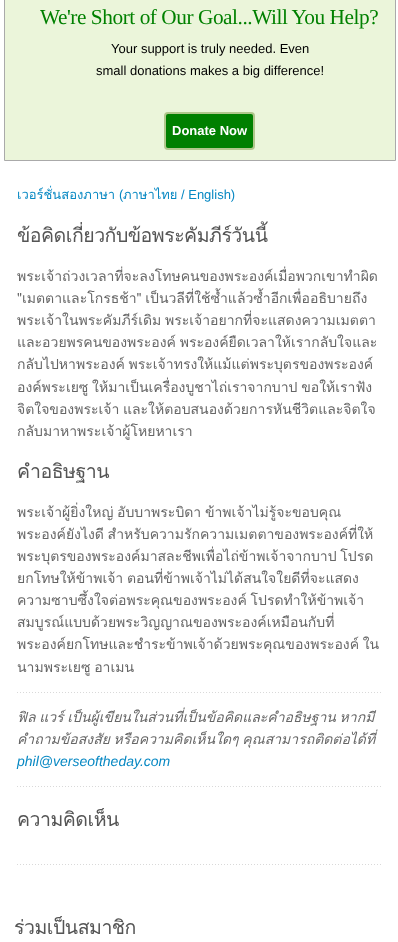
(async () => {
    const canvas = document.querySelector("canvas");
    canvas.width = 398;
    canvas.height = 942;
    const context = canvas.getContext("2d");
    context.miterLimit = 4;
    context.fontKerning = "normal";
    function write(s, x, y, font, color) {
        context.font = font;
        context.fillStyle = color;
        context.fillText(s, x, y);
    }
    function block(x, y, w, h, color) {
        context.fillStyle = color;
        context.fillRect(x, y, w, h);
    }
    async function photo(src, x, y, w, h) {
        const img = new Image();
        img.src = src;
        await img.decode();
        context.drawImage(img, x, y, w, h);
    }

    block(0, 0, 398, 942, "rgb(255, 255, 255)");
    context.fillStyle = "rgb(235, 245, 218)";
    context.beginPath();
    context.rect(4.5, -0.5, 391, 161);
    context.fill();
    context.strokeStyle = "rgb(170, 170, 170)";
    context.stroke();
    context.letterSpacing = "-0.45px";
    write("We're Short of Our Goal...Will You Help?", 40, 24, "21.3px Liberation Serif", "rgb(0, 128, 0)");
    context.letterSpacing = "0px";
    write("Your support is truly needed. Even", 111, 53, "13px Liberation Sans", "rgb(0, 0, 0)");
    write("small donations makes a big difference!", 96, 75, "13px Liberation Sans", "rgb(0, 0, 0)");
    context.fillStyle = "rgb(0, 128, 0)";
    context.beginPath();
    context.roundRect(165, 113, 89, 36, 3);
    context.fill();
    context.strokeStyle = "rgb(177, 199, 140)";
    context.lineWidth = 2;
    context.stroke();
    write("Donate Now", 172, 135, "bold 13px Liberation Sans", "rgb(255, 255, 255)");
    write("เวอร์ชั่นสองภาษา", 17, 199, "13px Loma", "rgb(7, 136, 195)");
    write("(", 119, 199, "13px Liberation Sans", "rgb(7, 136, 195)");
    write("ภาษาไทย", 123, 199, "13px Loma", "rgb(7, 136, 195)");
    write("/ English)", 181, 199, "13px Liberation Sans", "rgb(7, 136, 195)");
    await photo("media/1.png", 17, 692, 364, 1);
    context.letterSpacing = "-0.5px";
    write("ข้อคิดเกี่ยวกับข้อพระคัมภีร์วันนี้", 17, 242, "19.5px Loma", "rgb(85, 85, 85)");
    context.letterSpacing = "0px";
    write("พระเจ้าถ่วงเวลาที่จะลงโทษคนของพระองค์เมื่อพวกเขาทำผิด", 17, 281, "14px Loma", "rgb(102, 102, 102)");
    context.wordSpacing = "-1px";
    write("\"เมตตาและโกรธช้า\" เป็นวลีที่ใช้ซ้ำแล้วซ้ำอีกเพื่ออธิบายถึง", 17, 303, "14px Loma", "rgb(102, 102, 102)");
    write("พระเจ้าในพระคัมภีร์เดิม พระเจ้าอยากที่จะแสดงความเมตตา", 17, 325, "14px Loma", "rgb(102, 102, 102)");
    write("และอวยพรคนของพระองค์ พระองค์ยืดเวลาให้เรากลับใจและ", 17, 347, "14px Loma", "rgb(102, 102, 102)");
    write("กลับไปหาพระองค์ พระเจ้าทรงให้แม้แต่พระบุตรของพระองค์", 17, 369, "14px Loma", "rgb(102, 102, 102)");
    write("องค์พระเยซู ให้มาเป็นเครื่องบูชาไถ่เราจากบาป ขอให้เราฟัง", 17, 392, "14px Loma", "rgb(102, 102, 102)");
    write("จิตใจของพระเจ้า และให้ตอบสนองด้วยการหันชีวิตและจิตใจ", 17, 414, "14px Loma", "rgb(102, 102, 102)");
    context.wordSpacing = "0px";
    write("กลับมาหาพระเจ้าผู้โหยหาเรา", 17, 436, "14px Loma", "rgb(102, 102, 102)");
    context.letterSpacing = "-0.5px";
    write("คำอธิษฐาน", 17, 478, "19.5px Loma", "rgb(85, 85, 85)");
    context.letterSpacing = "0px";
    context.wordSpacing = "-1px";
    write("พระเจ้าผู้ยิ่งใหญ่ อับบาพระบิดา ข้าพเจ้าไม่รู้จะขอบคุณ", 17, 517, "14px Loma", "rgb(102, 102, 102)");
    write("พระองค์ยังไงดี สำหรับความรักความเมตตาของพระองค์ที่ให้", 17, 539, "14px Loma", "rgb(102, 102, 102)");
    write("พระบุตรของพระองค์มาสละชีพเพื่อไถ่ข้าพเจ้าจากบาป โปรด", 17, 561, "14px Loma", "rgb(102, 102, 102)");
    write("ยกโทษให้ข้าพเจ้า ตอนที่ข้าพเจ้าไม่ได้สนใจใยดีที่จะแสดง", 17, 583, "14px Loma", "rgb(102, 102, 102)");
    write("ความซาบซึ้งใจต่อพระคุณของพระองค์ โปรดทำให้ข้าพเจ้า", 17, 605, "14px Loma", "rgb(102, 102, 102)");
    context.wordSpacing = "0px";
    write("สมบูรณ์แบบด้วยพระวิญญาณของพระองค์เหมือนกับที่", 17, 627, "14px Loma", "rgb(102, 102, 102)");
    context.wordSpacing = "-1px";
    write("พระองค์ยกโทษและชำระข้าพเจ้าด้วยพระคุณของพระองค์ ใน", 17, 649, "14px Loma", "rgb(102, 102, 102)");
    write("นามพระเยซู อาเมน", 17, 672, "14px Loma", "rgb(102, 102, 102)");
    await photo("media/1.png", 17, 786, 364, 1);
    write("ฟิล แวร์ เป็นผู้เขียนในส่วนที่เป็นข้อคิดและคำอธิษฐาน หากมี", 17, 722, "italic 14px Loma", "rgb(102, 102, 102)");
    write("คำถามข้อสงสัย หรือความคิดเห็นใดๆ คุณสามารถติดต่อได้ที่", 17, 744, "italic 14px Loma", "rgb(102, 102, 102)");
    context.wordSpacing = "0px";
    write("phil@verseoftheday.com", 17, 766, "italic 14px Liberation Sans", "rgb(7, 136, 195)");
    await photo("media/1.png", 17, 864, 364, 1);
    context.letterSpacing = "-0.5px";
    write("ความคิดเห็น", 17, 826, "19.5px Loma", "rgb(85, 85, 85)");
    write("ร่วมเป็นสมาชิก", 14, 934, "19.5px Loma", "rgb(85, 85, 85)");
})();
